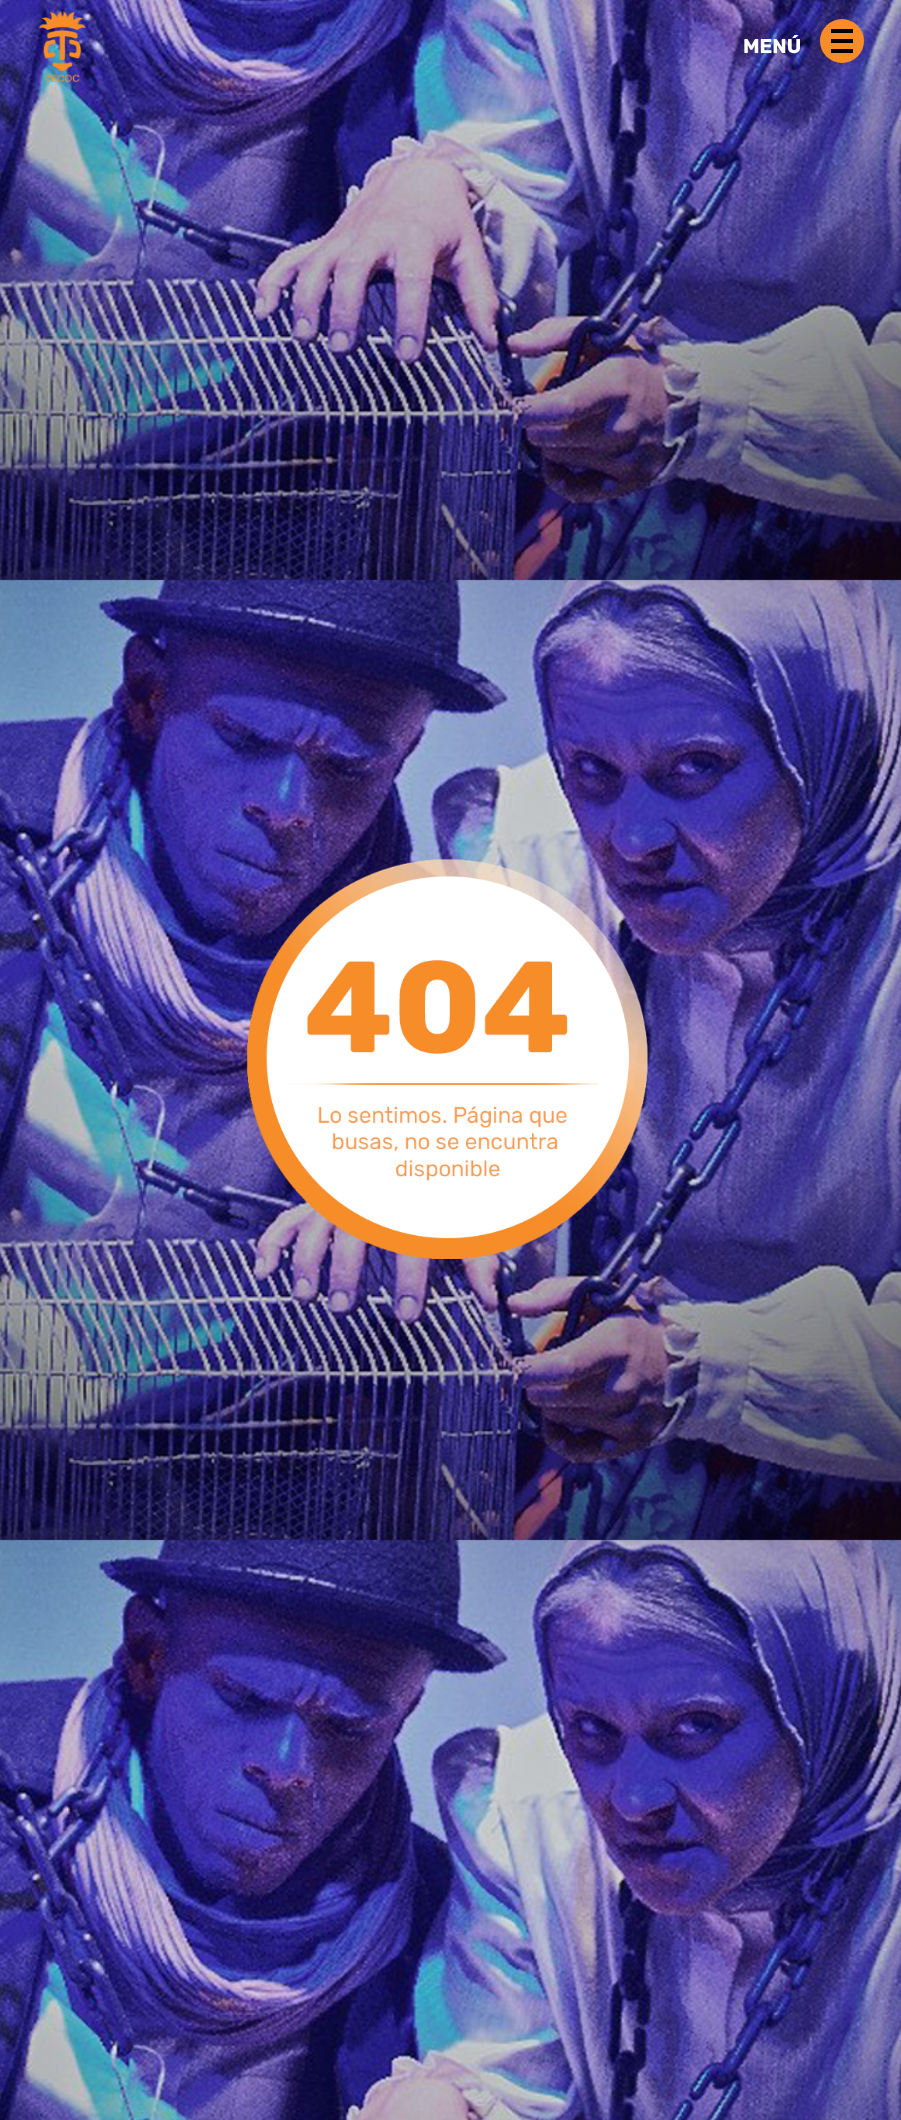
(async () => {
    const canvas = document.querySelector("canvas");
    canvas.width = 901;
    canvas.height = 2120;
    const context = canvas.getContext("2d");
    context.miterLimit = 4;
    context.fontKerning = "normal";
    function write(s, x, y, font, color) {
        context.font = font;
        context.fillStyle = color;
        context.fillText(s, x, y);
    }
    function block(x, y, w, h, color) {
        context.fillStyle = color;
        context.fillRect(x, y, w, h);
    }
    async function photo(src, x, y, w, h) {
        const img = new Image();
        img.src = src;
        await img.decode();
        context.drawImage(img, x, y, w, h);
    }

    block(0, 0, 901, 2120, "rgb(255, 255, 255)");
    await photo("media/1.png", 0, 0, 901, 2120);
    await photo("media/2.png", 247, 859, 401, 400);
    await photo("media/3.png", 39, 11, 47, 71);
    write("MENÚ", 743, 53, "bold 20px Rubik", "rgb(255, 255, 255)");
    context.fillStyle = "rgb(246, 141, 41)";
    context.beginPath();
    context.arc(842, 41, 22, 0, Math.PI * 2);
    context.fill();
    block(831, 29, 22, 4, "rgb(0, 0, 0)");
    block(831, 39, 22, 4, "rgb(0, 0, 0)");
    block(831, 49, 22, 4, "rgb(0, 0, 0)");
})();
